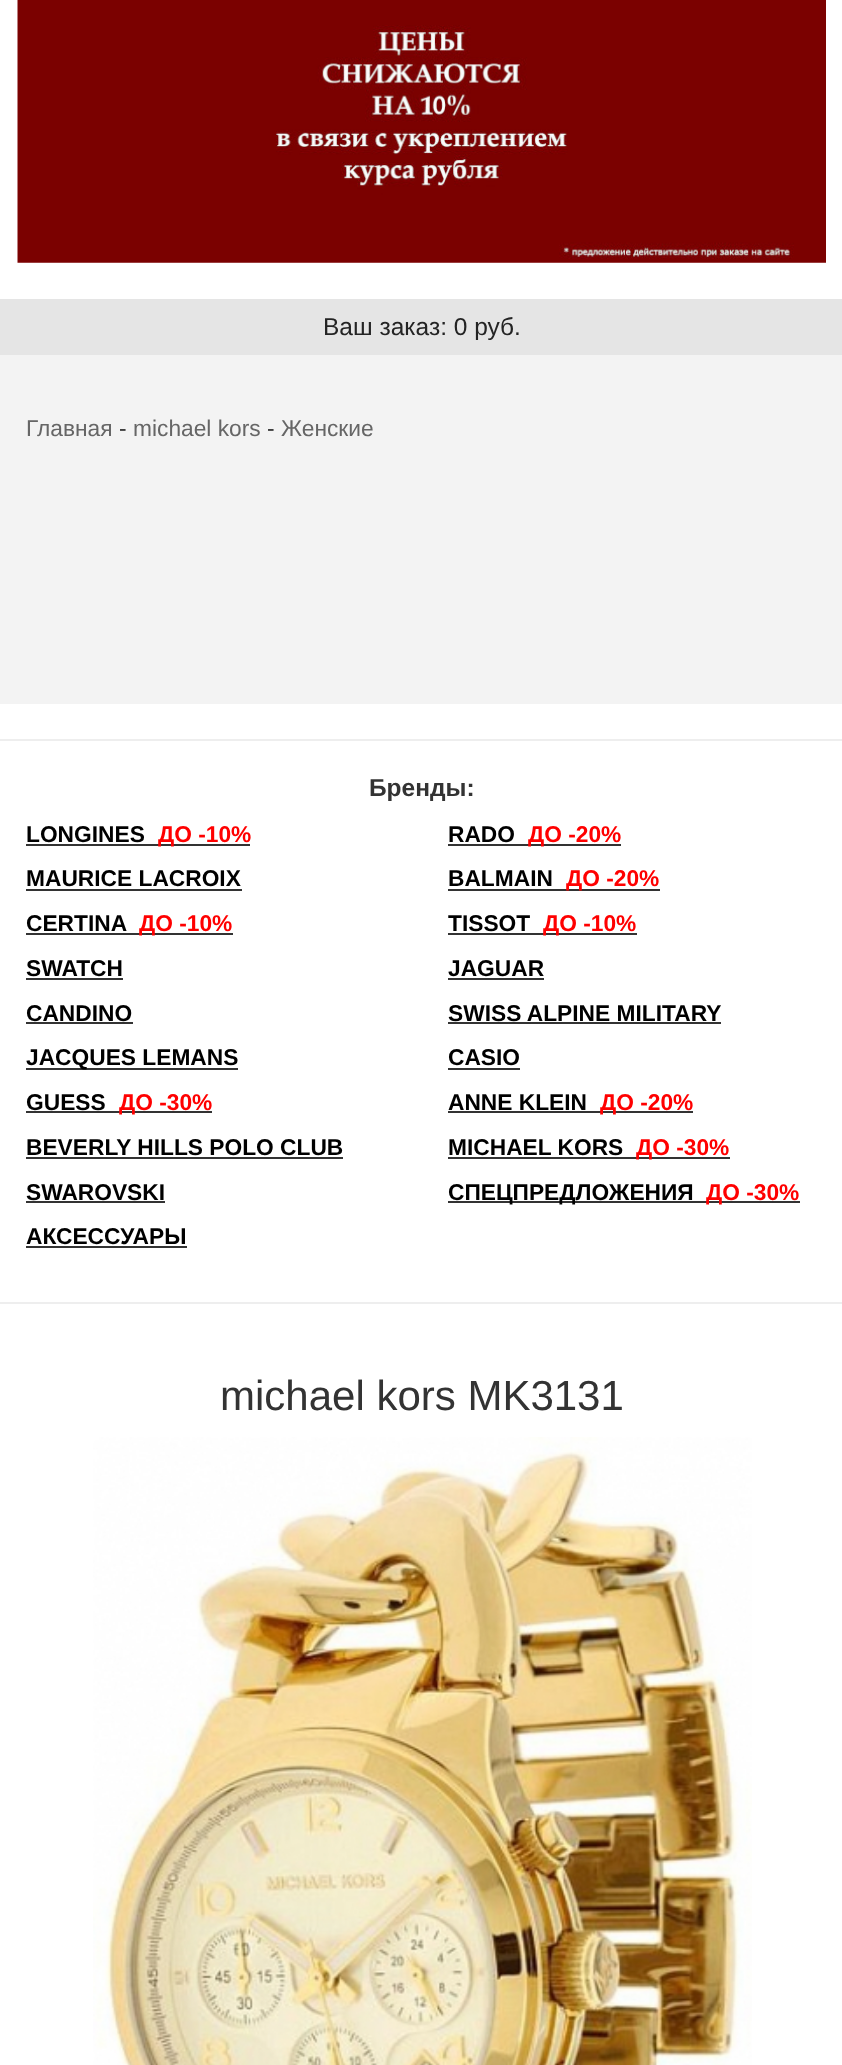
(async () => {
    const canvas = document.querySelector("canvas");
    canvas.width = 842;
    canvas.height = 2065;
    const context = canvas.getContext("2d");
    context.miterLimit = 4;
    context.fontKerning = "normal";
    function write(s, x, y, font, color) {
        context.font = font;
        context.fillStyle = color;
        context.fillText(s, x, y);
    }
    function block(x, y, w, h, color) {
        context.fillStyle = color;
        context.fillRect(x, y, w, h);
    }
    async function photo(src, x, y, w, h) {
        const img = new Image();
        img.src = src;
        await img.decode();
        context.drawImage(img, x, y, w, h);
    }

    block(0, 0, 842, 2065, "rgb(255, 255, 255)");
    await photo("media/1.png", 17, 0, 809, 263);
    block(0, 299, 842, 56, "rgb(229, 229, 229)");
    write("Ваш заказ: 0 руб.", 323, 335, "24.5px Liberation Sans", "rgb(36, 36, 36)");
    block(0, 355, 842, 349, "rgb(243, 243, 243)");
    write("Главная", 26, 436, "22.75px Liberation Sans", "rgb(102, 102, 102)");
    write("-", 119, 436, "22.75px Liberation Sans", "rgb(51, 51, 51)");
    write("michael kors", 133, 436, "22.75px Liberation Sans", "rgb(102, 102, 102)");
    write("-", 267, 436, "22.75px Liberation Sans", "rgb(51, 51, 51)");
    write("Женские", 281, 436, "22.75px Liberation Sans", "rgb(102, 102, 102)");
    block(0, 739, 842, 2, "rgb(238, 238, 238)");
    write("Бренды:", 369, 796, "bold 24.5px Liberation Sans", "rgb(51, 51, 51)");
    write("LONGINES", 26, 842, "bold 22.75px Liberation Sans", "rgb(0, 0, 0)");
    block(26, 844, 224, 2, "rgb(51, 51, 51)");
    write("ДО -10%", 158, 842, "bold 22.75px Liberation Sans", "rgb(255, 0, 0)");
    write("RADO", 448, 842, "bold 22.75px Liberation Sans", "rgb(0, 0, 0)");
    block(448, 844, 173, 2, "rgb(51, 51, 51)");
    write("ДО -20%", 528, 842, "bold 22.75px Liberation Sans", "rgb(255, 0, 0)");
    write("MAURICE LACROIX", 26, 886, "bold 22.75px Liberation Sans", "rgb(0, 0, 0)");
    block(26, 889, 216, 2, "rgb(51, 51, 51)");
    write("BALMAIN", 448, 886, "bold 22.75px Liberation Sans", "rgb(0, 0, 0)");
    block(448, 889, 212, 2, "rgb(51, 51, 51)");
    write("ДО -20%", 566, 886, "bold 22.75px Liberation Sans", "rgb(255, 0, 0)");
    write("CERTINA", 26, 931, "bold 22.75px Liberation Sans", "rgb(0, 0, 0)");
    block(26, 933, 207, 2, "rgb(51, 51, 51)");
    write("ДО -10%", 139, 931, "bold 22.75px Liberation Sans", "rgb(255, 0, 0)");
    write("TISSOT", 448, 931, "bold 22.75px Liberation Sans", "rgb(0, 0, 0)");
    block(448, 933, 189, 2, "rgb(51, 51, 51)");
    write("ДО -10%", 543, 931, "bold 22.75px Liberation Sans", "rgb(255, 0, 0)");
    write("SWATCH", 26, 976, "bold 22.75px Liberation Sans", "rgb(0, 0, 0)");
    block(26, 978, 97, 2, "rgb(51, 51, 51)");
    write("JAGUAR", 448, 976, "bold 22.75px Liberation Sans", "rgb(0, 0, 0)");
    block(448, 978, 96, 2, "rgb(51, 51, 51)");
    write("CANDINO", 26, 1021, "bold 22.75px Liberation Sans", "rgb(0, 0, 0)");
    block(26, 1022, 107, 2, "rgb(51, 51, 51)");
    write("SWISS ALPINE MILITARY", 448, 1021, "bold 22.75px Liberation Sans", "rgb(0, 0, 0)");
    block(448, 1022, 273, 2, "rgb(51, 51, 51)");
    block(26, 1068, 212, 2, "rgb(51, 51, 51)");
    write("JACQUES LEMANS", 26, 1065, "bold 22.75px Liberation Sans", "rgb(0, 0, 0)");
    write("CASIO", 448, 1065, "bold 22.75px Liberation Sans", "rgb(0, 0, 0)");
    block(448, 1068, 72, 2, "rgb(51, 51, 51)");
    write("GUESS", 26, 1110, "bold 22.75px Liberation Sans", "rgb(0, 0, 0)");
    block(26, 1111, 186, 2, "rgb(51, 51, 51)");
    write("ДО -30%", 119, 1110, "bold 22.75px Liberation Sans", "rgb(255, 0, 0)");
    write("ANNE KLEIN", 448, 1110, "bold 22.75px Liberation Sans", "rgb(0, 0, 0)");
    block(448, 1111, 245, 2, "rgb(51, 51, 51)");
    write("ДО -20%", 600, 1110, "bold 22.75px Liberation Sans", "rgb(255, 0, 0)");
    write("BEVERLY HILLS POLO CLUB", 26, 1155, "bold 22.75px Liberation Sans", "rgb(0, 0, 0)");
    block(26, 1157, 317, 2, "rgb(51, 51, 51)");
    write("MICHAEL KORS", 448, 1155, "bold 22.75px Liberation Sans", "rgb(0, 0, 0)");
    block(448, 1157, 282, 2, "rgb(51, 51, 51)");
    write("ДО -30%", 636, 1155, "bold 22.75px Liberation Sans", "rgb(255, 0, 0)");
    write("SWAROVSKI", 26, 1200, "bold 22.75px Liberation Sans", "rgb(0, 0, 0)");
    block(26, 1201, 139, 2, "rgb(51, 51, 51)");
    block(448, 1201, 352, 2, "rgb(51, 51, 51)");
    write("СПЕЦПРЕДЛОЖЕНИЯ", 448, 1200, "bold 22.75px Liberation Sans", "rgb(0, 0, 0)");
    write("ДО -30%", 706, 1200, "bold 22.75px Liberation Sans", "rgb(255, 0, 0)");
    write("АКСЕССУАРЫ", 26, 1244, "bold 22.75px Liberation Sans", "rgb(0, 0, 0)");
    block(26, 1246, 161, 2, "rgb(51, 51, 51)");
    block(0, 1302, 842, 2, "rgb(238, 238, 238)");
    write("michael kors MK3131", 220, 1410, "42px Liberation Sans", "rgb(51, 51, 51)");
    await photo("media/2.png", 93, 1437, 659, 628);
})();
